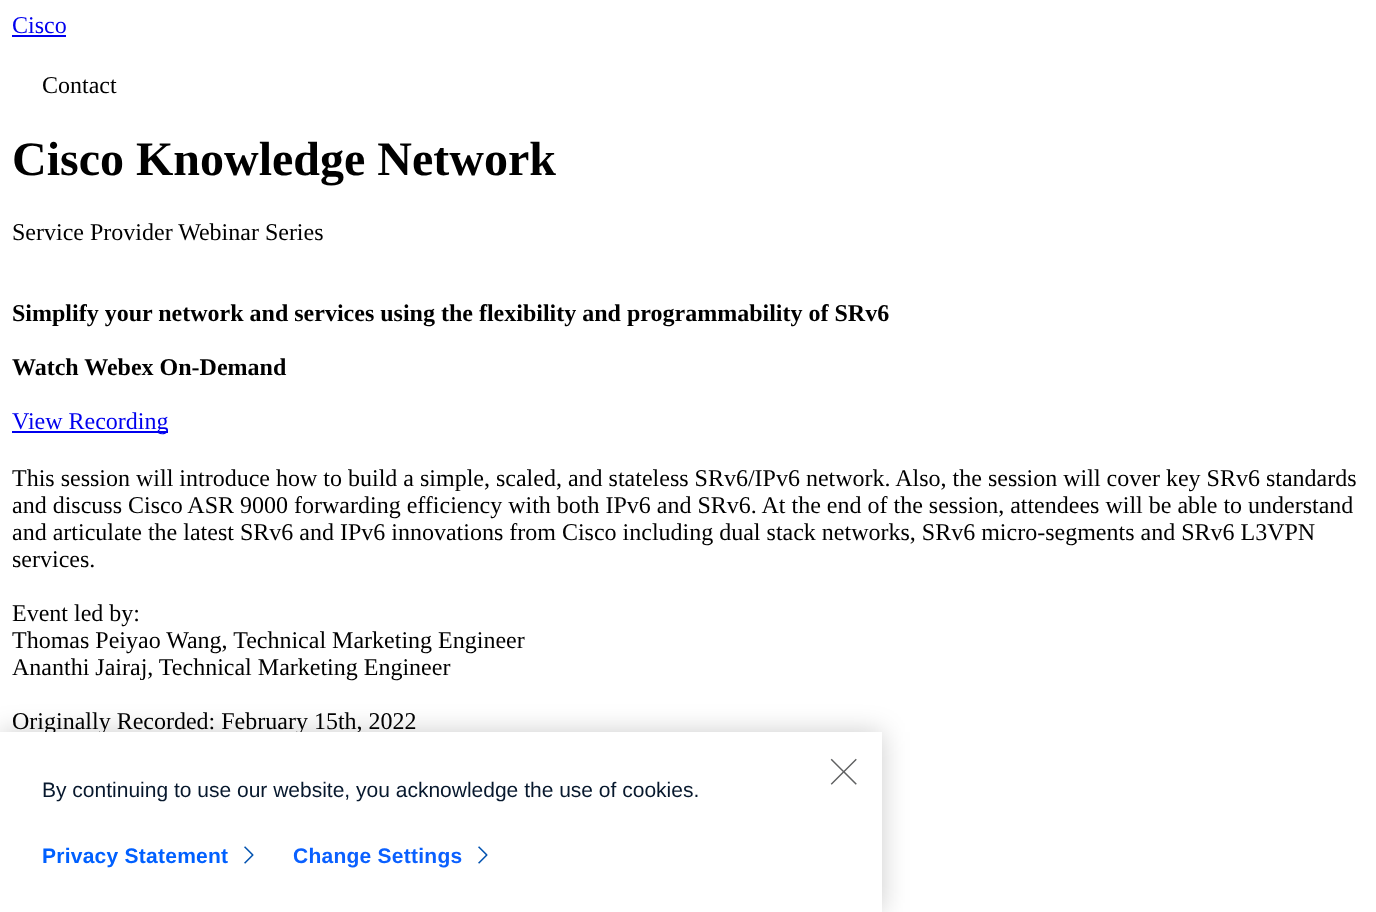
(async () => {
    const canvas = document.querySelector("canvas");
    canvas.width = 1376;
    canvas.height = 912;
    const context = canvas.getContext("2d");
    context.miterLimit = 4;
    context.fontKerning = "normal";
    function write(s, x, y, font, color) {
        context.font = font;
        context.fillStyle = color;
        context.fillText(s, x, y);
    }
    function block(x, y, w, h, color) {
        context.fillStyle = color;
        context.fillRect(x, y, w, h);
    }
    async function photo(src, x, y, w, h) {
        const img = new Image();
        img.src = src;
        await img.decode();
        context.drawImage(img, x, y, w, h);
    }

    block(0, 0, 1376, 912, "rgb(255, 255, 255)");
    write("Cisco", 12, 33, "24px Liberation Serif", "rgb(0, 0, 238)");
    block(12, 35, 54, 2, "rgb(0, 0, 238)");
    write("Contact", 42, 93, "24px Liberation Serif", "rgb(0, 0, 0)");
    write("Cisco Knowledge Network", 12, 175, "bold 48px Liberation Serif", "rgb(0, 0, 0)");
    write("Service Provider Webinar Series", 12, 240, "24px Liberation Serif", "rgb(0, 0, 0)");
    write("Simplify your network and services using the flexibility and programmability of SRv6", 12, 321, "bold 24px Liberation Serif", "rgb(0, 0, 0)");
    write("Watch Webex On-Demand", 12, 375, "bold 24px Liberation Serif", "rgb(0, 0, 0)");
    block(12, 431, 156, 2, "rgb(0, 0, 238)");
    write("View Recording", 12, 429, "24px Liberation Serif", "rgb(0, 0, 238)");
    write("This session will introduce how to build a simple, scaled, and stateless SRv6/IPv6 network. Also, the session will cover key SRv6 standards", 12, 486, "24px Liberation Serif", "rgb(0, 0, 0)");
    write("and discuss Cisco ASR 9000 forwarding efficiency with both IPv6 and SRv6. At the end of the session, attendees will be able to understand", 12, 513, "24px Liberation Serif", "rgb(0, 0, 0)");
    write("and articulate the latest SRv6 and IPv6 innovations from Cisco including dual stack networks, SRv6 micro-segments and SRv6 L3VPN", 12, 540, "24px Liberation Serif", "rgb(0, 0, 0)");
    write("services.", 12, 567, "24px Liberation Serif", "rgb(0, 0, 0)");
    write("Event led by:", 12, 621, "24px Liberation Serif", "rgb(0, 0, 0)");
    write("Thomas Peiyao Wang, Technical Marketing Engineer", 12, 648, "24px Liberation Serif", "rgb(0, 0, 0)");
    write("Ananthi Jairaj, Technical Marketing Engineer", 12, 675, "24px Liberation Serif", "rgb(0, 0, 0)");
    write("Originally Recorded: February 15th, 2022", 12, 729, "24px Liberation Serif", "rgb(0, 0, 0)");
    context.fillStyle = "rgba(0, 0, 0, 0.2)";
    context.filter = "blur(13.5px)";
    context.beginPath();
    context.rect(0, 732, 882, 180);
    context.fill();
    context.filter = "none";
    block(0, 732, 882, 180, "rgb(255, 255, 255)");
    await photo("media/1.png", 830, 758, 27, 27);
    write("By continuing to use our website, you acknowledge the use of cookies.", 42, 797, "21px Liberation Sans", "rgb(7, 24, 45)");
    context.letterSpacing = "0.25px";
    write("Privacy Statement", 42, 863, "bold 21px Liberation Sans", "rgb(0, 96, 255)");
    await photo("media/2.png", 244, 846, 10, 18);
    write("Change Settings", 293, 863, "bold 21px Liberation Sans", "rgb(10, 96, 255)");
    await photo("media/2.png", 478, 846, 10, 18);
})();
